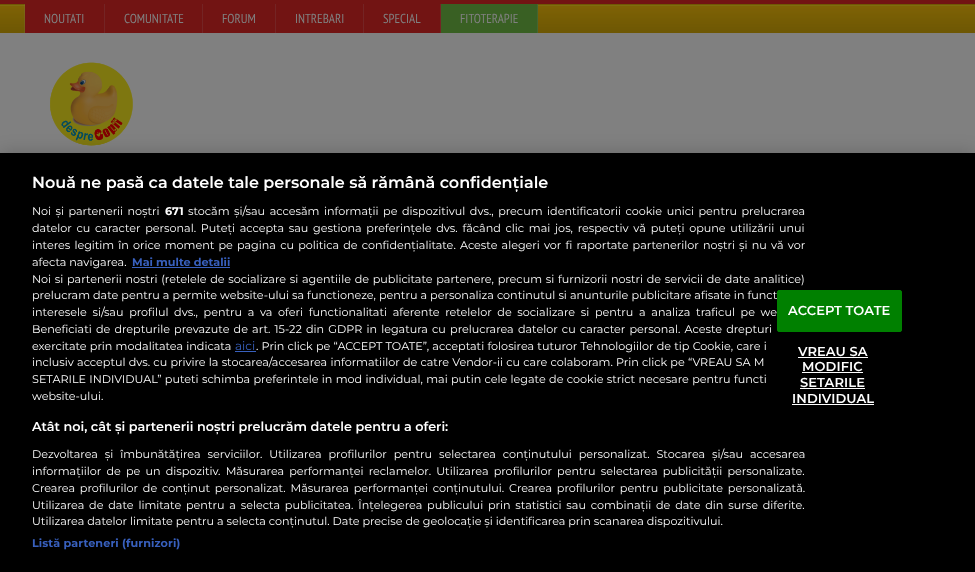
(async () => {
    const canvas = document.querySelector("canvas");
    canvas.width = 975;
    canvas.height = 572;
    const context = canvas.getContext("2d");
    context.miterLimit = 4;
    context.fontKerning = "normal";
    function write(s, x, y, font, color) {
        context.font = font;
        context.fillStyle = color;
        context.fillText(s, x, y);
    }
    function block(x, y, w, h, color) {
        context.fillStyle = color;
        context.fillRect(x, y, w, h);
    }
    function card(x, y, w, h, r, color) {
        context.fillStyle = color;
        context.beginPath();
        context.roundRect(x, y, w, h, r);
        context.fill();
    }
    async function photo(src, x, y, w, h) {
        const img = new Image();
        img.src = src;
        await img.decode();
        context.drawImage(img, x, y, w, h);
    }

    block(0, 0, 975, 572, "rgb(128, 128, 128)");
    await photo("media/1.png", 0, 4, 975, 29);
    block(0, 0, 975, 4, "rgb(114, 20, 19)");
    block(24, 4, 1, 29, "rgba(128, 128, 128, 0.15)");
    block(25, 4, 79, 29, "rgb(114, 20, 19)");
    block(104, 4, 1, 29, "rgb(116, 36, 36)");
    write("NOUTATI", 44, 23, "13px PT Sans Narrow", "rgb(128, 128, 128)");
    block(105, 4, 97, 29, "rgb(114, 20, 19)");
    block(202, 4, 1, 29, "rgb(116, 36, 36)");
    write("COMUNITATE", 124, 23, "13px PT Sans Narrow", "rgb(128, 128, 128)");
    block(203, 4, 72, 29, "rgb(114, 20, 19)");
    block(275, 4, 1, 29, "rgb(116, 36, 36)");
    write("FORUM", 222, 23, "13px PT Sans Narrow", "rgb(128, 128, 128)");
    block(276, 4, 87, 29, "rgb(114, 20, 19)");
    block(363, 4, 1, 29, "rgb(116, 36, 36)");
    write("INTREBARI", 295, 23, "13px PT Sans Narrow", "rgb(128, 128, 128)");
    block(364, 4, 76, 29, "rgb(114, 20, 19)");
    block(440, 4, 1, 29, "rgb(116, 36, 36)");
    write("SPECIAL", 383, 23, "13px PT Sans Narrow", "rgb(128, 128, 128)");
    block(441, 4, 96, 29, "rgb(57, 96, 35)");
    block(537, 4, 1, 29, "rgb(68, 101, 49)");
    write("FITOTERAPIE", 460, 23, "13px PT Sans Narrow", "rgb(128, 128, 128)");
    await photo("media/2.png", 50, 62, 83, 84);
    context.fillStyle = "rgba(0, 0, 0, 0.2)";
    context.filter = "blur(9px)";
    context.beginPath();
    context.rect(0, 153, 975, 419);
    context.fill();
    context.filter = "none";
    block(0, 153, 975, 419, "rgb(0, 0, 0)");
    write("Nouă ne pasă ca datele tale personale să rămână confidențiale", 32, 188, "600 16px Montserrat", "rgb(255, 255, 255)");
    context.wordSpacing = "1.5px";
    write("Noi și partenerii noștri", 32, 215, "11.2px Montserrat", "rgb(255, 255, 255)");
    context.wordSpacing = "0px";
    write("671", 165, 215, "bold 11.2px Montserrat", "rgb(255, 255, 255)");
    context.wordSpacing = "1.6px";
    write("stocăm și/sau accesăm informații pe dispozitivul dvs., precum identificatorii cookie unici pentru prelucrarea", 188, 215, "11.2px Montserrat", "rgb(255, 255, 255)");
    context.wordSpacing = "1.8px";
    write("datelor cu caracter personal. Puteți accepta sau gestiona preferințele dvs. făcând clic mai jos, respectiv vă puteți opune utilizării unui", 32, 232, "11.2px Montserrat", "rgb(255, 255, 255)");
    context.wordSpacing = "1.25px";
    write("interes legitim în orice moment pe pagina cu politica de confidențialitate. Aceste alegeri vor fi raportate partenerilor noștri și nu vă vor", 32, 249, "11.2px Montserrat", "rgb(255, 255, 255)");
    context.wordSpacing = "0px";
    write("afecta navigarea.", 32, 266, "11.2px Montserrat", "rgb(255, 255, 255)");
    write("Mai multe detalii", 132, 266, "bold 11.2px Montserrat", "rgb(56, 96, 190)");
    block(132, 267, 98, 1, "rgb(56, 96, 190)");
    context.wordSpacing = "0.8px";
    write("Noi si partenerii nostri (retelele de socializare si agentiile de publicitate partenere, precum si furnizorii nostri de servicii de date analitice)", 32, 283, "11.2px Montserrat", "rgb(255, 255, 255)");
    context.wordSpacing = "0.1px";
    write("prelucram date pentru a permite website-ului sa functioneze, pentru a personaliza continutul si anunturile publicitare afisate in funct", 32, 299, "11.2px Montserrat", "rgb(255, 255, 255)");
    context.wordSpacing = "2.75px";
    write("interesele si/sau profilul dvs., pentru a va oferi functionalitati aferente retelelor de socializare si pentru a analiza traficul pe we", 32, 316, "11.2px Montserrat", "rgb(255, 255, 255)");
    context.wordSpacing = "1.25px";
    write("Beneficiati de drepturile prevazute de art. 15-22 din GDPR in legatura cu prelucrarea datelor cu caracter personal. Aceste drepturi", 32, 333, "11.2px Montserrat", "rgb(255, 255, 255)");
    context.wordSpacing = "0.3px";
    write("exercitate prin modalitatea indicata", 32, 350, "11.2px Montserrat", "rgb(255, 255, 255)");
    context.wordSpacing = "0px";
    write("aici", 235, 350, "12px Montserrat", "rgb(56, 96, 190)");
    block(235, 351, 21, 1, "rgb(56, 96, 190)");
    context.wordSpacing = "0.3px";
    write(". Prin click pe “ACCEPT TOATE”, acceptati folosirea tuturor Tehnologiilor de tip Cookie, care i", 256, 350, "11.2px Montserrat", "rgb(255, 255, 255)");
    write("inclusiv acceptul dvs. cu privire la stocarea/accesarea informatiilor de catre Vendor-ii cu care colaboram. Prin click pe “VREAU SA M", 32, 366, "11.2px Montserrat", "rgb(255, 255, 255)");
    context.wordSpacing = "0.4px";
    write("SETARILE INDIVIDUAL” puteti schimba preferintele in mod individual, mai putin cele legate de cookie strict necesare pentru functi", 32, 383, "11.2px Montserrat", "rgb(255, 255, 255)");
    context.wordSpacing = "0px";
    write("website-ului.", 32, 400, "11.2px Montserrat", "rgb(255, 255, 255)");
    write("Atât noi, cât și partenerii noștri prelucrăm datele pentru a oferi:", 32, 431, "600 12.8px Montserrat", "rgb(255, 255, 255)");
    context.wordSpacing = "4px";
    write("Dezvoltarea și îmbunătățirea serviciilor. Utilizarea profilurilor pentru selectarea conținutului personalizat. Stocarea și/sau accesarea", 32, 458, "11.2px Montserrat", "rgb(255, 255, 255)");
    context.wordSpacing = "2.25px";
    write("informațiilor de pe un dispozitiv. Măsurarea performanței reclamelor. Utilizarea profilurilor pentru selectarea publicității personalizate.", 32, 475, "11.2px Montserrat", "rgb(255, 255, 255)");
    context.wordSpacing = "1.9px";
    write("Crearea profilurilor de conținut personalizat. Măsurarea performanței conținutului. Crearea profilurilor pentru publicitate personalizată.", 32, 492, "11.2px Montserrat", "rgb(255, 255, 255)");
    write("Utilizarea de date limitate pentru a selecta publicitatea. Înțelegerea publicului prin statistici sau combinații de date din surse diferite.", 32, 509, "11.2px Montserrat", "rgb(255, 255, 255)");
    context.wordSpacing = "0px";
    write("Utilizarea datelor limitate pentru a selecta conținutul. Date precise de geolocație și identificarea prin scanarea dispozitivului.", 32, 525, "11.2px Montserrat", "rgb(255, 255, 255)");
    context.letterSpacing = "0.1px";
    write("Listă parteneri (furnizori)", 32, 547, "bold 11.2px Montserrat", "rgb(56, 96, 190)");
    context.fillStyle = "rgb(0, 128, 0)";
    context.beginPath();
    context.roundRect(777.5, 290.5, 124, 41, 1.5);
    context.fill();
    context.strokeStyle = "rgb(0, 128, 0)";
    context.stroke();
    write("ACCEPT TOATE", 788, 315, "600 13px Montserrat", "rgb(255, 255, 255)");
    card(770, 332, 125, 86, 2, "rgb(0, 0, 0)");
    write("VREAU SA", 798, 356, "600 13px Montserrat", "rgb(255, 255, 255)");
    block(798, 357, 70, 1, "rgb(255, 255, 255)");
    write("MODIFIC", 802, 371, "600 13px Montserrat", "rgb(255, 255, 255)");
    block(802, 372, 61, 1, "rgb(255, 255, 255)");
    write("SETARILE", 800, 387, "600 13px Montserrat", "rgb(255, 255, 255)");
    block(800, 388, 65, 1, "rgb(255, 255, 255)");
    write("INDIVIDUAL", 792, 403, "600 13px Montserrat", "rgb(255, 255, 255)");
    block(792, 404, 82, 1, "rgb(255, 255, 255)");
})();
